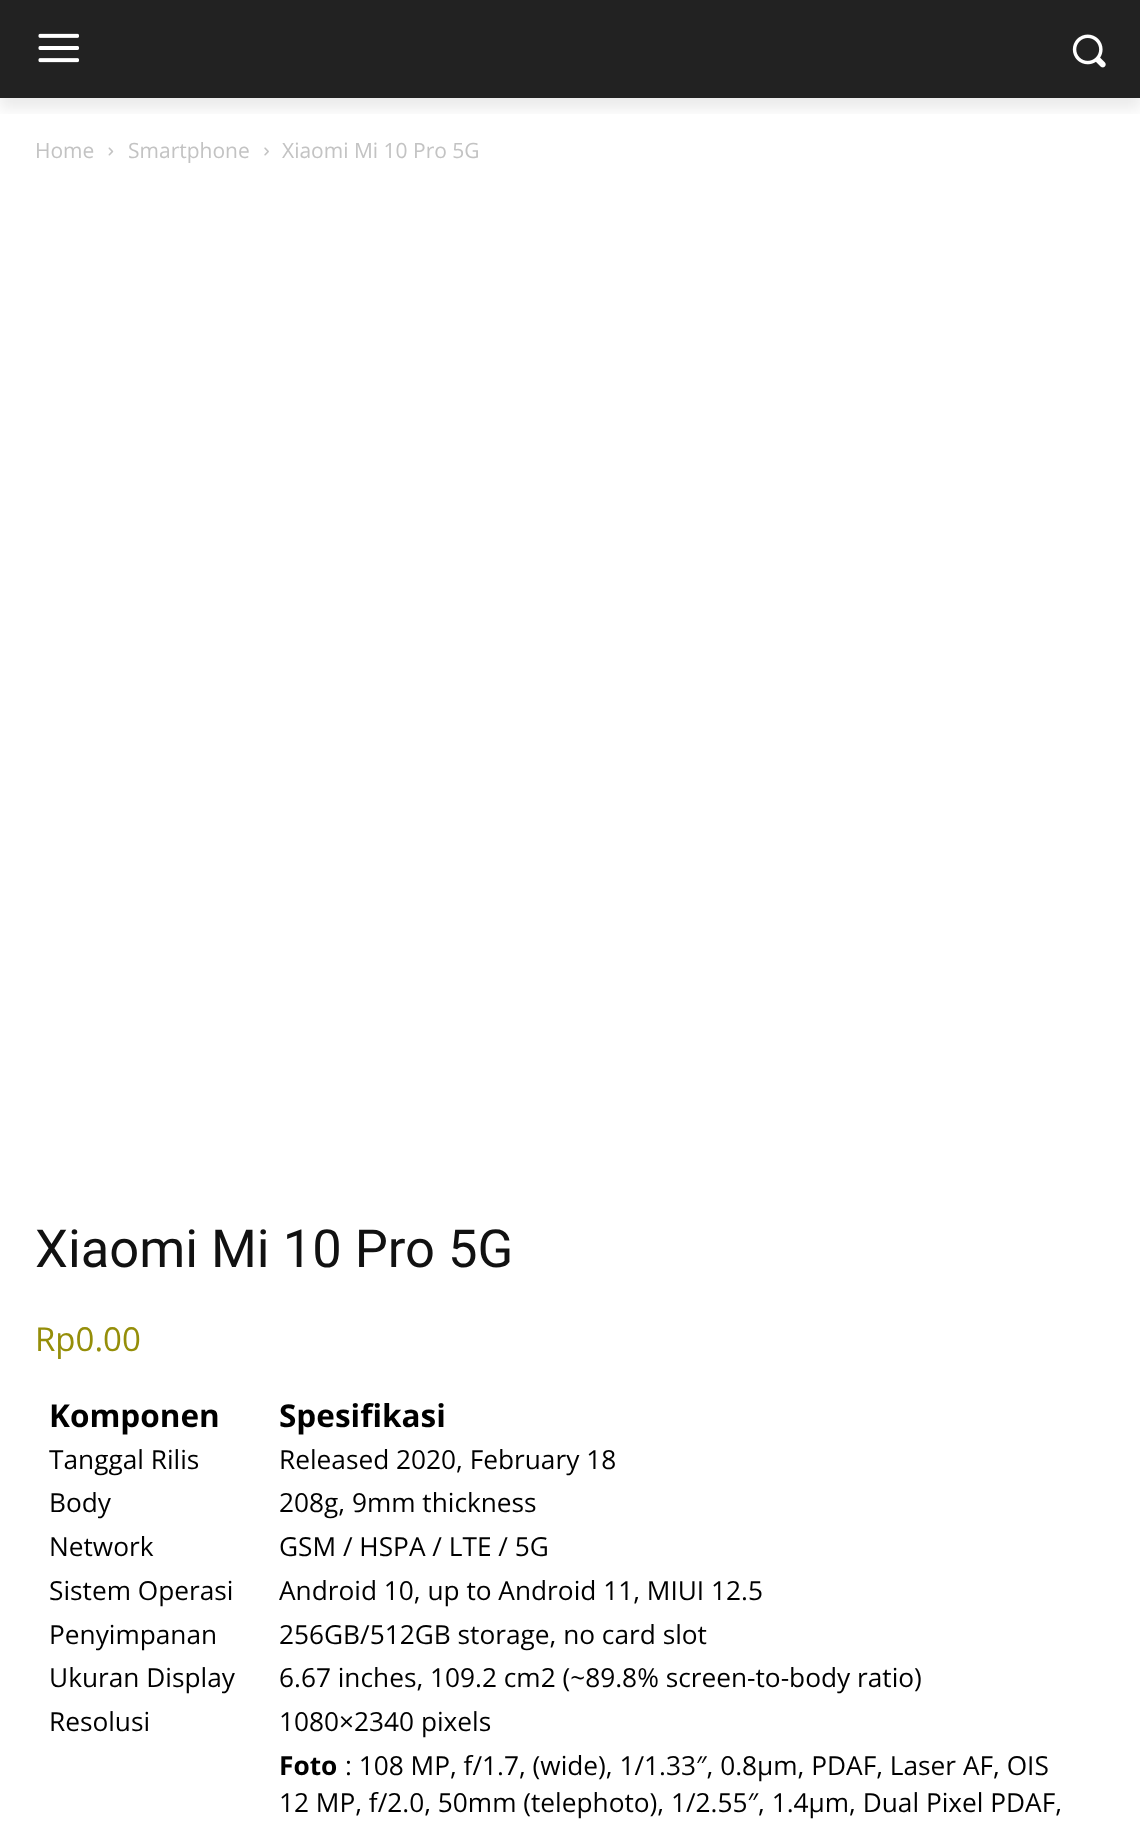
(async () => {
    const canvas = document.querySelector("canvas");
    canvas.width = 1140;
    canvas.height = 1834;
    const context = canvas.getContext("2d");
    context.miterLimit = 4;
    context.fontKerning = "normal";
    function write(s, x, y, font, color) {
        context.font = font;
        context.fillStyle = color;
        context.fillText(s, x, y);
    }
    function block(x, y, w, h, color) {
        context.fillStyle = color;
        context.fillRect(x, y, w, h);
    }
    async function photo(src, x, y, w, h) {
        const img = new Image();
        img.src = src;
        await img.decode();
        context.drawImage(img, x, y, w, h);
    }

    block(0, 0, 1140, 1834, "rgb(255, 255, 255)");
    block(0, 0, 1140, 98, "rgb(34, 34, 34)");
    await photo("media/1.png", 38, 33, 41, 30);
    await photo("media/2.png", 1072, 34, 34, 34);
    context.save();
    context.beginPath();
    context.rect(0, 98, 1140, 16);
    context.clip();
    context.fillStyle = "rgba(0, 0, 0, 0.08)";
    context.filter = "blur(7px)";
    context.beginPath();
    context.rect(0, 11, 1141, 98);
    context.fill();
    context.filter = "none";
    context.restore();
    write("Home", 35, 158, "21px Open Sans", "rgb(195, 195, 195)");
    await photo("media/3.png", 108, 147, 6, 9);
    write("Smartphone", 128, 158, "21px Open Sans", "rgb(195, 195, 195)");
    await photo("media/4.png", 264, 147, 5, 9);
    write("Xiaomi Mi 10 Pro 5G", 282, 158, "21px Open Sans", "rgb(195, 195, 195)");
    write("Xiaomi Mi 10 Pro 5G", 35, 1267, "52.5px Roboto", "rgb(17, 17, 17)");
    write("Rp0.00", 35, 1351, "33px Open Sans", "rgb(149, 142, 9)");
    write("Komponen", 49, 1427, "bold 31.5px Open Sans", "rgb(0, 0, 0)");
    write("Spesifikasi", 279, 1427, "bold 31.5px Open Sans", "rgb(0, 0, 0)");
    write("Tanggal Rilis", 49, 1469, "26.25px Open Sans", "rgb(0, 0, 0)");
    write("Released 2020, February 18", 279, 1469, "26.25px Open Sans", "rgb(0, 0, 0)");
    write("Body", 49, 1512, "26.25px Open Sans", "rgb(0, 0, 0)");
    write("208g, 9mm thickness", 279, 1512, "26.25px Open Sans", "rgb(0, 0, 0)");
    write("Network", 49, 1556, "26.25px Open Sans", "rgb(0, 0, 0)");
    write("GSM / HSPA / LTE / 5G", 279, 1556, "26.25px Open Sans", "rgb(0, 0, 0)");
    write("Sistem Operasi", 49, 1600, "26.25px Open Sans", "rgb(0, 0, 0)");
    write("Android 10, up to Android 11, MIUI 12.5", 279, 1600, "26.25px Open Sans", "rgb(0, 0, 0)");
    write("Penyimpanan", 49, 1644, "26.25px Open Sans", "rgb(0, 0, 0)");
    write("256GB/512GB storage, no card slot", 279, 1644, "26.25px Open Sans", "rgb(0, 0, 0)");
    write("Ukuran Display", 49, 1687, "26.25px Open Sans", "rgb(0, 0, 0)");
    write("6.67 inches, 109.2 cm2 (~89.8% screen-to-body ratio)", 279, 1687, "26.25px Open Sans", "rgb(0, 0, 0)");
    write("Resolusi", 49, 1731, "26.25px Open Sans", "rgb(0, 0, 0)");
    write("1080×2340 pixels", 279, 1731, "26.25px Open Sans", "rgb(0, 0, 0)");
    write("Foto", 279, 1775, "bold 26.25px Open Sans", "rgb(0, 0, 0)");
    write(": 108 MP, f/1.7, (wide), 1/1.33″, 0.8µm, PDAF, Laser AF, OIS", 345, 1775, "26.25px Open Sans", "rgb(0, 0, 0)");
    write("12 MP, f/2.0, 50mm (telephoto), 1/2.55″, 1.4µm, Dual Pixel PDAF,", 279, 1812, "26.25px Open Sans", "rgb(0, 0, 0)");
})();
